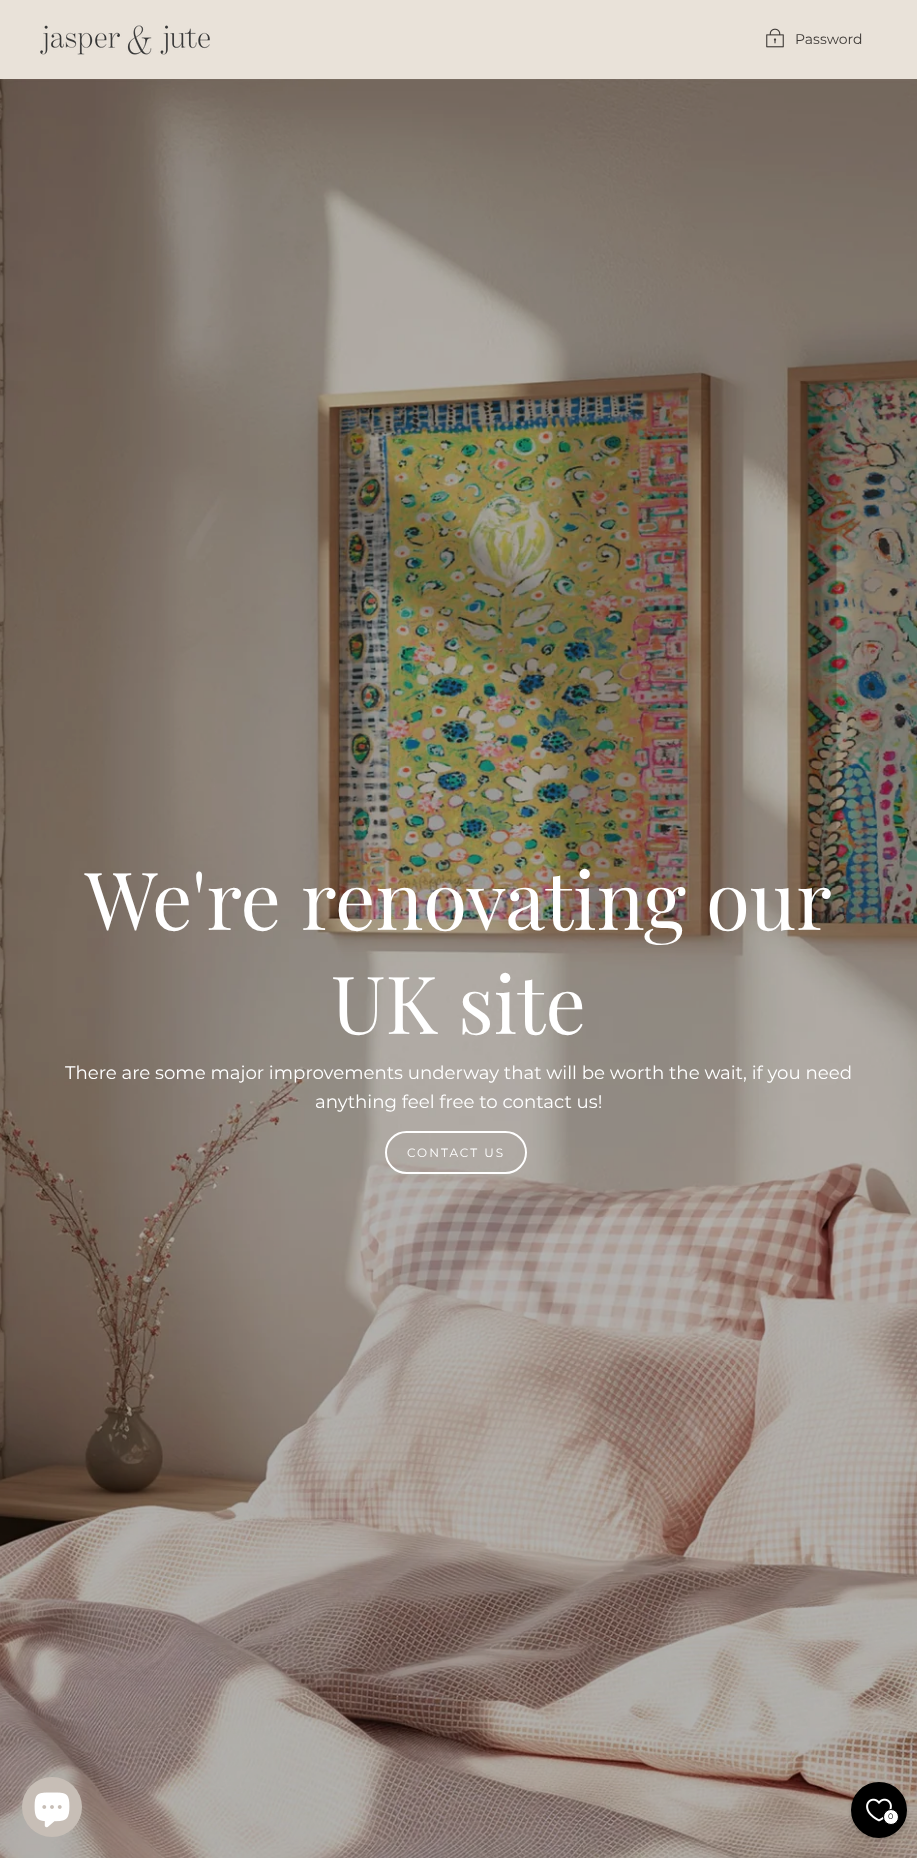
(async () => {
    const canvas = document.querySelector("canvas");
    canvas.width = 917;
    canvas.height = 1858;
    const context = canvas.getContext("2d");
    context.miterLimit = 4;
    context.fontKerning = "normal";
    function write(s, x, y, font, color) {
        context.font = font;
        context.fillStyle = color;
        context.fillText(s, x, y);
    }
    function block(x, y, w, h, color) {
        context.fillStyle = color;
        context.fillRect(x, y, w, h);
    }
    async function photo(src, x, y, w, h) {
        const img = new Image();
        img.src = src;
        await img.decode();
        context.drawImage(img, x, y, w, h);
    }

    block(0, 0, 917, 1858, "rgb(255, 255, 255)");
    block(0, 0, 917, 79, "rgb(233, 226, 217)");
    await photo("media/1.png", 40, 25, 170, 30);
    await photo("media/2.png", 766, 28, 18, 20);
    write("Password", 795, 44, "14px Montserrat", "rgb(61, 57, 54)");
    await photo("media/3.png", 0, 79, 917, 1779);
    write("We're renovating our", 85, 930, "80px Playfair Display", "rgb(255, 255, 255)");
    write("UK site", 331, 1034, "80px Playfair Display", "rgb(255, 255, 255)");
    write("There are some major improvements underway that will be worth the wait, if you need", 65, 1079, "18.2px Montserrat", "rgb(255, 255, 255)");
    write("anything feel free to contact us!", 315, 1108, "18.2px Montserrat", "rgb(255, 255, 255)");
    context.beginPath();
    context.roundRect(386, 1132, 140, 41, 20.5);
    context.strokeStyle = "rgb(255, 255, 255)";
    context.lineWidth = 2;
    context.stroke();
    context.letterSpacing = "2px";
    write("CONTACT US", 407, 1157, "12px Montserrat", "rgb(255, 255, 255)");
    context.fillStyle = "rgb(199, 190, 182)";
    context.beginPath();
    context.arc(52, 1807, 30, 0, Math.PI * 2);
    context.fill();
    await photo("media/4.png", 34, 1792, 36, 36);
    context.fillStyle = "rgba(0, 0, 0, 0.15)";
    context.filter = "blur(2px)";
    context.beginPath();
    context.roundRect(851, 1784, 56, 56, 28);
    context.fill();
    context.filter = "none";
    context.fillStyle = "rgb(0, 0, 0)";
    context.beginPath();
    context.arc(879, 1810, 27, 0, Math.PI * 2);
    context.fill();
    context.strokeStyle = "rgb(0, 0, 0)";
    context.stroke();
    await photo("media/5.png", 866, 1798, 26, 24);
    context.fillStyle = "rgb(255, 255, 255)";
    context.beginPath();
    context.arc(891, 1817, 7.5, 0, Math.PI * 2);
    context.fill();
    context.lineWidth = 1;
    context.stroke();
    context.letterSpacing = "0px";
    write("0", 888, 1819, "8px Montserrat", "rgb(0, 0, 0)");
})();
